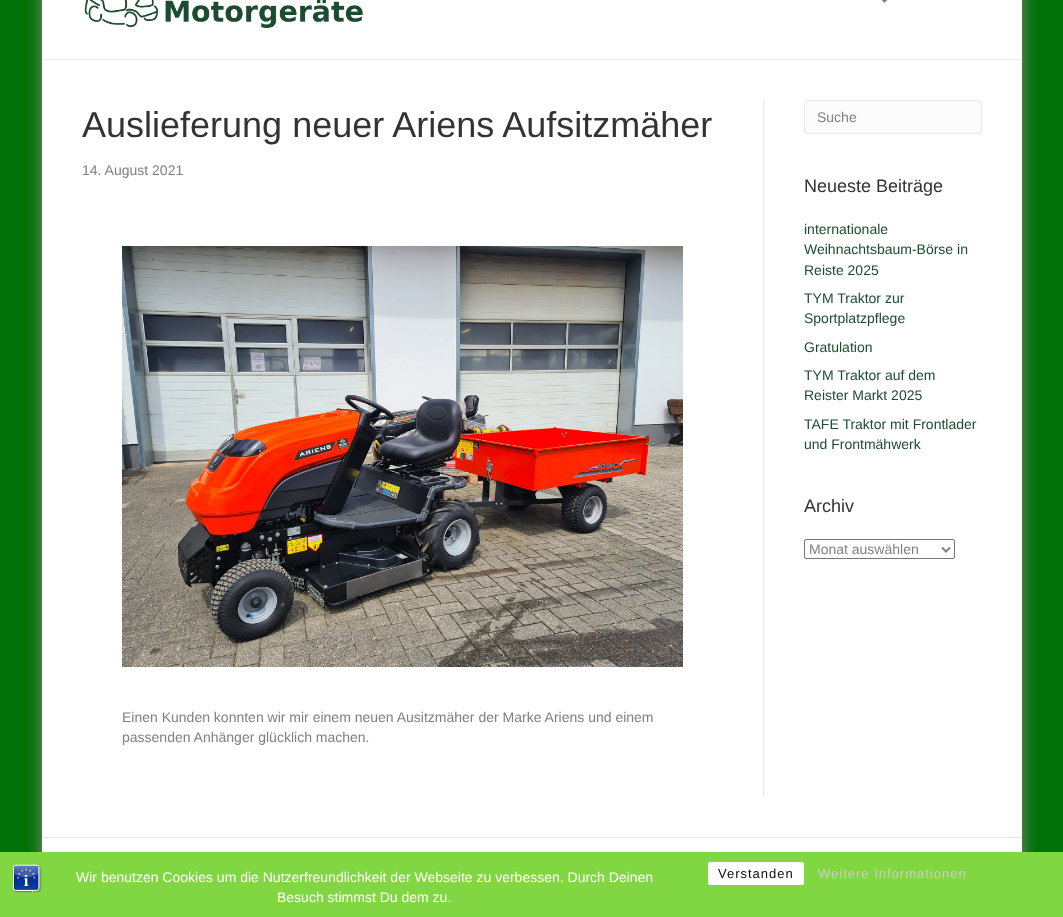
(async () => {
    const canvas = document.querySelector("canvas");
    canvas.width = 1063;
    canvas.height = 917;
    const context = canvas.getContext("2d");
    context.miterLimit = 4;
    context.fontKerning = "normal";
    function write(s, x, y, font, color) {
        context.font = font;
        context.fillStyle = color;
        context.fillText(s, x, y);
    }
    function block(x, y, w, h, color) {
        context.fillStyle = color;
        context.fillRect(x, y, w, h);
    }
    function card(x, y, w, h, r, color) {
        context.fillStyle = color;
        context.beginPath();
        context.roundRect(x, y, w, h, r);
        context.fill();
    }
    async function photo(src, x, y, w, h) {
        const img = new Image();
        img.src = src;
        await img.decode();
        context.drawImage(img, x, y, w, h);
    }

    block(0, 0, 1063, 917, "rgb(0, 114, 7)");
    context.fillStyle = "rgb(137, 137, 137)";
    context.filter = "blur(8px)";
    context.beginPath();
    context.rect(42, -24, 980, 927);
    context.fill();
    context.filter = "none";
    block(42, 0, 980, 59, "rgb(255, 255, 255)");
    block(42, 59, 980, 1, "rgb(238, 238, 238)");
    await photo("media/1.png", 84, 0, 279, 28);
    await photo("media/2.png", 881, 0, 6, 3);
    block(42, 60, 980, 777, "rgb(255, 255, 255)");
    block(763, 100, 1, 697, "rgb(230, 230, 230)");
    write("Auslieferung neuer Ariens Aufsitzmäher", 82, 137, "36px Liberation Sans", "rgb(51, 51, 51)");
    write("14. August 2021", 82, 175, "14px Liberation Sans", "rgb(128, 128, 128)");
    await photo("media/3.png", 122, 246, 561, 421);
    write("Einen Kunden konnten wir mir einem neuen Ausitzmäher der Marke Ariens und einem", 122, 722, "14px Liberation Sans", "rgb(128, 128, 128)");
    write("passenden Anhänger glücklich machen.", 122, 742, "14px Liberation Sans", "rgb(128, 128, 128)");
    context.fillStyle = "rgb(252, 252, 252)";
    context.beginPath();
    context.roundRect(804.5, 100.5, 177, 33, 3.5);
    context.fill();
    context.strokeStyle = "rgb(230, 230, 230)";
    context.stroke();
    write("Suche", 817, 122, "14px Liberation Sans", "rgb(128, 128, 128)");
    write("Neueste Beiträge", 804, 192, "18px Liberation Sans", "rgb(51, 51, 51)");
    write("internationale", 804, 234, "14px Liberation Sans", "rgb(28, 76, 47)");
    write("Weihnachtsbaum-Börse in", 804, 254, "14px Liberation Sans", "rgb(28, 76, 47)");
    write("Reiste 2025", 804, 275, "14px Liberation Sans", "rgb(28, 76, 47)");
    write("TYM Traktor zur", 804, 303, "14px Liberation Sans", "rgb(28, 76, 47)");
    write("Sportplatzpflege", 804, 323, "14px Liberation Sans", "rgb(28, 76, 47)");
    write("Gratulation", 804, 352, "14px Liberation Sans", "rgb(28, 76, 47)");
    write("TYM Traktor auf dem", 804, 380, "14px Liberation Sans", "rgb(28, 76, 47)");
    write("Reister Markt 2025", 804, 400, "14px Liberation Sans", "rgb(28, 76, 47)");
    write("TAFE Traktor mit Frontlader", 804, 429, "14px Liberation Sans", "rgb(28, 76, 47)");
    write("und Frontmähwerk", 804, 449, "14px Liberation Sans", "rgb(28, 76, 47)");
    write("Archiv", 804, 512, "18px Liberation Sans", "rgb(51, 51, 51)");
    context.beginPath();
    context.roundRect(804.5, 539.5, 150, 19, 1.5);
    context.strokeStyle = "rgb(118, 118, 118)";
    context.stroke();
    context.beginPath();
    context.moveTo(942, 547.5);
    context.lineTo(946, 551.5);
    context.lineTo(950, 547.5);
    context.strokeStyle = "rgb(128, 128, 128)";
    context.lineWidth = 2;
    context.stroke();
    write("Monat auswählen", 809, 554, "14px Liberation Sans", "rgb(128, 128, 128)");
    block(42, 838, 980, 14, "rgb(255, 255, 255)");
    block(42, 837, 980, 1, "rgb(230, 230, 230)");
    block(0, 852, 1063, 65, "rgb(129, 215, 66)");
    await photo("media/4.png", 13, 864, 29, 29);
    write("Wir benutzen Cookies um die Nutzerfreundlichkeit der Webseite zu verbessen. Durch Deinen", 76, 882, "14px Liberation Sans", "rgb(255, 255, 255)");
    write("Besuch stimmst Du dem zu.", 277, 902, "14px Liberation Sans", "rgb(255, 255, 255)");
    card(708, 862, 96, 23, 2, "rgb(255, 255, 255)");
    context.letterSpacing = "1px";
    write("Verstanden", 718, 878, "13px Liberation Sans", "rgb(10, 10, 10)");
    write("Weitere Informationen", 818, 878, "13px Liberation Sans", "rgb(204, 204, 204)");
})();
